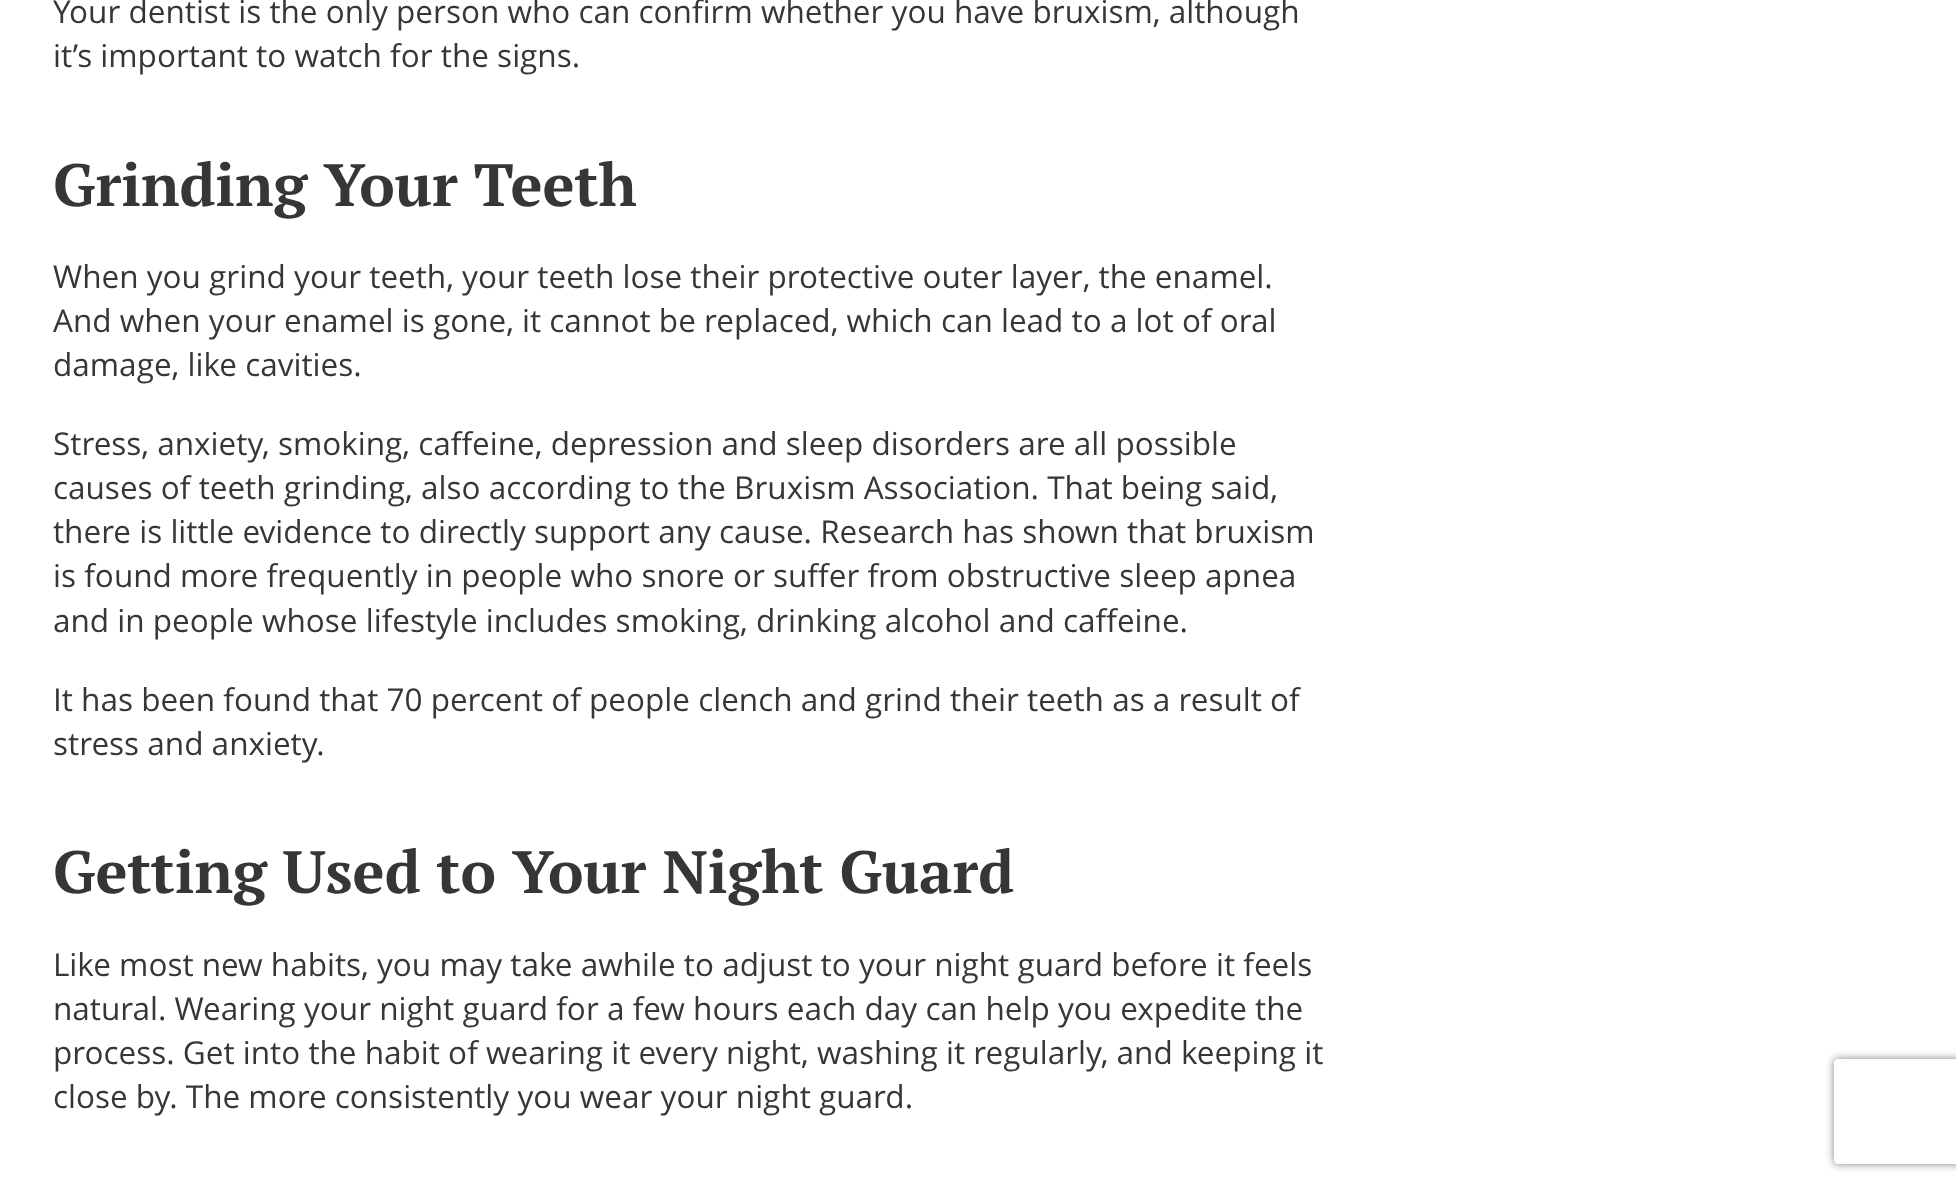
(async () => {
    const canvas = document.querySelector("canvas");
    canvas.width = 1956;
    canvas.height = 1187;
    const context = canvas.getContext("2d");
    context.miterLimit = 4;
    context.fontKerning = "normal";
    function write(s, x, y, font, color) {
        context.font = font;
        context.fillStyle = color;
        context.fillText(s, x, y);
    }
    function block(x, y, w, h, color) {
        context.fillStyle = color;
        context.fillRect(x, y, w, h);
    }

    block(0, 0, 1956, 1187, "rgb(255, 255, 255)");
    write("Your dentist is the only person who can confirm whether you have bruxism, although", 53, 23, "31.5px Open Sans", "rgb(54, 54, 54)");
    write("it’s important to watch for the signs.", 53, 67, "31.5px Open Sans", "rgb(54, 54, 54)");
    write("Grinding Your Teeth", 53, 206, "bold 59.8px PT Serif", "rgb(54, 54, 54)");
    write("When you grind your teeth, your teeth lose their protective outer layer, the enamel.", 53, 288, "31.5px Open Sans", "rgb(54, 54, 54)");
    write("And when your enamel is gone, it cannot be replaced, which can lead to a lot of oral", 53, 332, "31.5px Open Sans", "rgb(54, 54, 54)");
    write("damage, like cavities.", 53, 376, "31.5px Open Sans", "rgb(54, 54, 54)");
    write("Stress, anxiety, smoking, caffeine, depression and sleep disorders are all possible", 53, 455, "31.5px Open Sans", "rgb(54, 54, 54)");
    write("causes of teeth grinding, also according to the Bruxism Association. That being said,", 53, 499, "31.5px Open Sans", "rgb(54, 54, 54)");
    write("there is little evidence to directly support any cause. Research has shown that bruxism", 53, 543, "31.5px Open Sans", "rgb(54, 54, 54)");
    write("is found more frequently in people who snore or suffer from obstructive sleep apnea", 53, 587, "31.5px Open Sans", "rgb(54, 54, 54)");
    write("and in people whose lifestyle includes smoking, drinking alcohol and caffeine.", 53, 632, "31.5px Open Sans", "rgb(54, 54, 54)");
    write("It has been found that 70 percent of people clench and grind their teeth as a result of", 53, 711, "31.5px Open Sans", "rgb(54, 54, 54)");
    write("stress and anxiety.", 53, 755, "31.5px Open Sans", "rgb(54, 54, 54)");
    write("Getting Used to Your Night Guard", 53, 893, "bold 59.8px PT Serif", "rgb(54, 54, 54)");
    write("Like most new habits, you may take awhile to adjust to your night guard before it feels", 53, 976, "31.5px Open Sans", "rgb(54, 54, 54)");
    write("natural. Wearing your night guard for a few hours each day can help you expedite the", 53, 1020, "31.5px Open Sans", "rgb(54, 54, 54)");
    write("process. Get into the habit of wearing it every night, washing it regularly, and keeping it", 53, 1064, "31.5px Open Sans", "rgb(54, 54, 54)");
    write("close by. The more consistently you wear your night guard.", 53, 1108, "31.5px Open Sans", "rgb(54, 54, 54)");
    context.save();
    context.beginPath();
    context.moveTo(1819, 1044);
    context.lineTo(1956, 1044);
    context.lineTo(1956, 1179);
    context.lineTo(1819, 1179);
    context.closePath();
    context.moveTo(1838, 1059);
    context.lineTo(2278, 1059);
    context.bezierCurveTo(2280, 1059, 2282, 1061, 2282, 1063);
    context.lineTo(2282, 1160);
    context.bezierCurveTo(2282, 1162, 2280, 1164, 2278, 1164);
    context.lineTo(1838, 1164);
    context.bezierCurveTo(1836, 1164, 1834, 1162, 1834, 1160);
    context.lineTo(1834, 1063);
    context.bezierCurveTo(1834, 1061, 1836, 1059, 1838, 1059);
    context.closePath();
    context.clip("evenodd");
    context.fillStyle = "rgb(128, 128, 128)";
    context.filter = "blur(4.5px)";
    context.beginPath();
    context.roundRect(1834, 1059, 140, 105, 4);
    context.fill();
    context.filter = "none";
    context.restore();
})();
